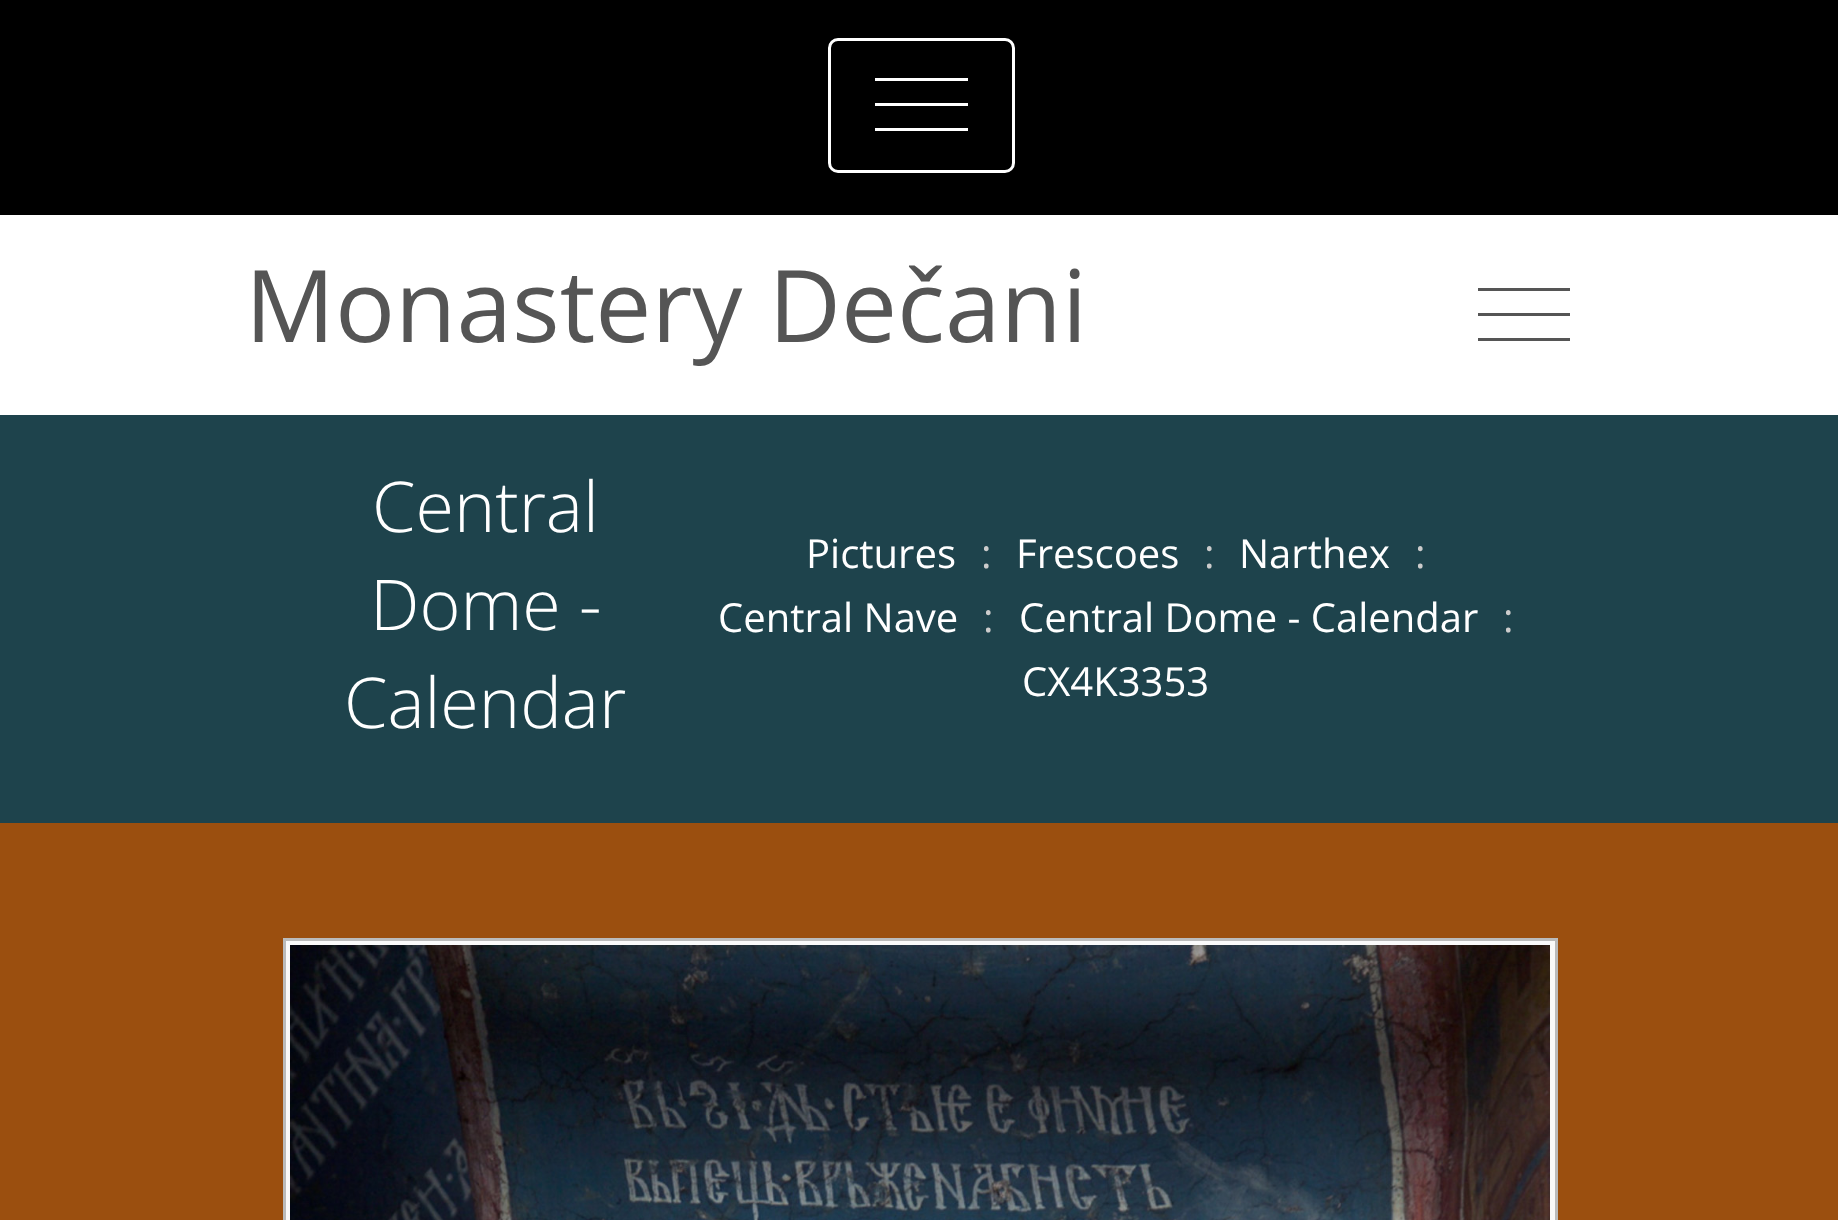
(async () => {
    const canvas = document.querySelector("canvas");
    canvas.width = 1838;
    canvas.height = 1220;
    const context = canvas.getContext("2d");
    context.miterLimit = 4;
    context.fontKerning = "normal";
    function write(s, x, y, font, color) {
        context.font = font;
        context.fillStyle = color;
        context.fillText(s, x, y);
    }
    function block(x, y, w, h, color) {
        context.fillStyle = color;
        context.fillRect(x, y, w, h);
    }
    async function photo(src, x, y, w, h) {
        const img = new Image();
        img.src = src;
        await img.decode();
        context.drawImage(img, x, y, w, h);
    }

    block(0, 0, 1838, 1220, "rgb(255, 255, 255)");
    block(0, 0, 1838, 215, "rgb(0, 0, 0)");
    context.beginPath();
    context.roundRect(829.5, 39.5, 184, 132, 8.5);
    context.strokeStyle = "rgb(255, 255, 255)";
    context.lineWidth = 3;
    context.stroke();
    block(875, 78, 93, 3, "rgb(255, 255, 255)");
    block(875, 103, 93, 3, "rgb(255, 255, 255)");
    block(875, 128, 93, 3, "rgb(255, 255, 255)");
    write("Monastery Dečani", 245, 342, "100px Open Sans", "rgb(85, 85, 85)");
    block(1478, 288, 92, 3, "rgb(85, 85, 85)");
    block(1478, 313, 92, 3, "rgb(85, 85, 85)");
    block(1478, 338, 92, 3, "rgb(85, 85, 85)");
    block(0, 415, 1838, 408, "rgb(30, 67, 76)");
    write("Central", 372, 532, "300 70px Open Sans", "rgb(255, 255, 255)");
    write("Dome -", 370, 630, "300 70px Open Sans", "rgb(255, 255, 255)");
    write("Calendar", 344, 728, "300 70px Open Sans", "rgb(255, 255, 255)");
    write("Pictures", 806, 568, "40px Open Sans", "rgb(255, 255, 255)");
    write(":", 981, 568, "40px Open Sans", "rgb(204, 204, 204)");
    write("Frescoes", 1016, 568, "40px Open Sans", "rgb(255, 255, 255)");
    write(":", 1204, 568, "40px Open Sans", "rgb(204, 204, 204)");
    write("Narthex", 1239, 568, "40px Open Sans", "rgb(255, 255, 255)");
    write(":", 1415, 568, "40px Open Sans", "rgb(204, 204, 204)");
    write("Central Nave", 718, 632, "40px Open Sans", "rgb(255, 255, 255)");
    write(":", 983, 632, "40px Open Sans", "rgb(204, 204, 204)");
    write("Central Dome - Calendar", 1019, 632, "40px Open Sans", "rgb(255, 255, 255)");
    write(":", 1503, 632, "40px Open Sans", "rgb(204, 204, 204)");
    write("CX4K3353", 1022, 696, "40px Open Sans", "rgb(255, 255, 255)");
    block(0, 823, 1838, 397, "rgb(155, 79, 15)");
    context.fillStyle = "rgb(250, 250, 250)";
    context.beginPath();
    context.rect(284.5, 939.5, 1272, 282);
    context.fill();
    context.strokeStyle = "rgb(187, 187, 187)";
    context.stroke();
    await photo("media/1.png", 290, 945, 1260, 275);
})();
